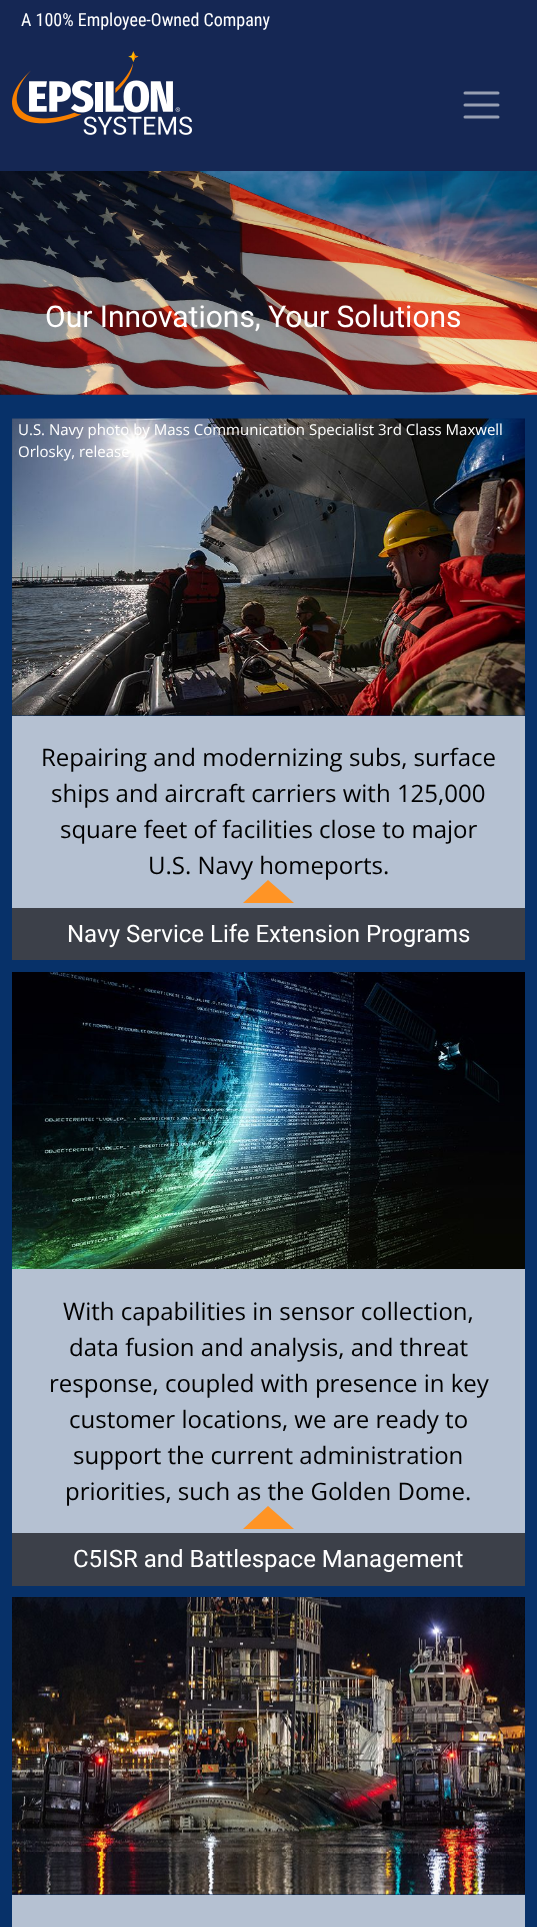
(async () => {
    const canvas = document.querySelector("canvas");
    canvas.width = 537;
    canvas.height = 1927;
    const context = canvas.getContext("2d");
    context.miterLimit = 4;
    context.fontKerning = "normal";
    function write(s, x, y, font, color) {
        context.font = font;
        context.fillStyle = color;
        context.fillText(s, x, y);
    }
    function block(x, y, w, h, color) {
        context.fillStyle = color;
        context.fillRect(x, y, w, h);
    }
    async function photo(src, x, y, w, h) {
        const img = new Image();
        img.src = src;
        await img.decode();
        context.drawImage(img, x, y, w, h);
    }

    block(0, 0, 537, 1927, "rgb(7, 49, 105)");
    block(0, 0, 537, 171, "rgb(21, 39, 84)");
    write("A 100% Employee-Owned Company", 21, 26, "18px Roboto Condensed", "rgb(255, 255, 255)");
    await photo("media/1.png", 12, 51, 180, 84);
    context.beginPath();
    context.moveTo(465, 93);
    context.lineTo(498, 93);
    context.moveTo(465, 105);
    context.lineTo(498, 105);
    context.moveTo(465, 117);
    context.lineTo(498, 117);
    context.strokeStyle = "rgb(150, 158, 178)";
    context.lineWidth = 3;
    context.lineCap = "round";
    context.stroke();
    block(0, 394, 537, 1, "rgb(21, 39, 84)");
    await photo("media/2.png", 0, 171, 537, 224);
    write("Our Innovations, Your Solutions", 45, 327, "30px Roboto", "rgb(255, 255, 255)");
    await photo("media/3.png", 12, 418, 513, 298);
    write("U.S. Navy photo by Mass Communication Specialist 3rd Class Maxwell", 18, 435, "15px Open Sans", "rgb(255, 255, 255)");
    write("Orlosky, release", 18, 457, "15px Open Sans", "rgb(255, 255, 255)");
    block(12, 716, 513, 192, "rgb(181, 193, 210)");
    write("Repairing and modernizing subs, surface", 41, 766, "24px Open Sans", "rgb(0, 0, 0)");
    write("ships and aircraft carriers with 125,000", 51, 802, "24px Open Sans", "rgb(0, 0, 0)");
    write("square feet of facilities close to major", 60, 838, "24px Open Sans", "rgb(0, 0, 0)");
    write("U.S. Navy homeports.", 148, 874, "24px Open Sans", "rgb(0, 0, 0)");
    context.fillStyle = "rgb(255, 148, 37)";
    context.beginPath();
    context.moveTo(269, 903);
    context.lineTo(294, 903);
    context.lineTo(268, 880);
    context.lineTo(243, 903);
    context.closePath();
    context.fill();
    block(12, 908, 513, 52, "rgb(60, 64, 73)");
    write("Navy Service Life Extension Programs", 67, 942, "24px Roboto", "rgb(255, 255, 255)");
    await photo("media/4.png", 12, 972, 513, 297);
    block(12, 1269, 513, 264, "rgb(181, 193, 210)");
    write("With capabilities in sensor collection,", 63, 1320, "24px Open Sans", "rgb(0, 0, 0)");
    write("data fusion and analysis, and threat", 69, 1356, "24px Open Sans", "rgb(0, 0, 0)");
    write("response, coupled with presence in key", 49, 1392, "24px Open Sans", "rgb(0, 0, 0)");
    write("customer locations, we are ready to", 69, 1428, "24px Open Sans", "rgb(0, 0, 0)");
    write("support the current administration", 73, 1464, "24px Open Sans", "rgb(0, 0, 0)");
    write("priorities, such as the Golden Dome.", 65, 1500, "24px Open Sans", "rgb(0, 0, 0)");
    context.fillStyle = "rgb(255, 148, 37)";
    context.beginPath();
    context.moveTo(269, 1529);
    context.lineTo(294, 1529);
    context.lineTo(268, 1506);
    context.lineTo(243, 1529);
    context.closePath();
    context.fill();
    block(12, 1533, 513, 53, "rgb(60, 64, 73)");
    write("C5ISR and Battlespace Management", 73, 1567, "24px Roboto", "rgb(255, 255, 255)");
    await photo("media/5.png", 12, 1597, 513, 298);
    block(12, 1895, 513, 32, "rgb(181, 193, 210)");
})();
